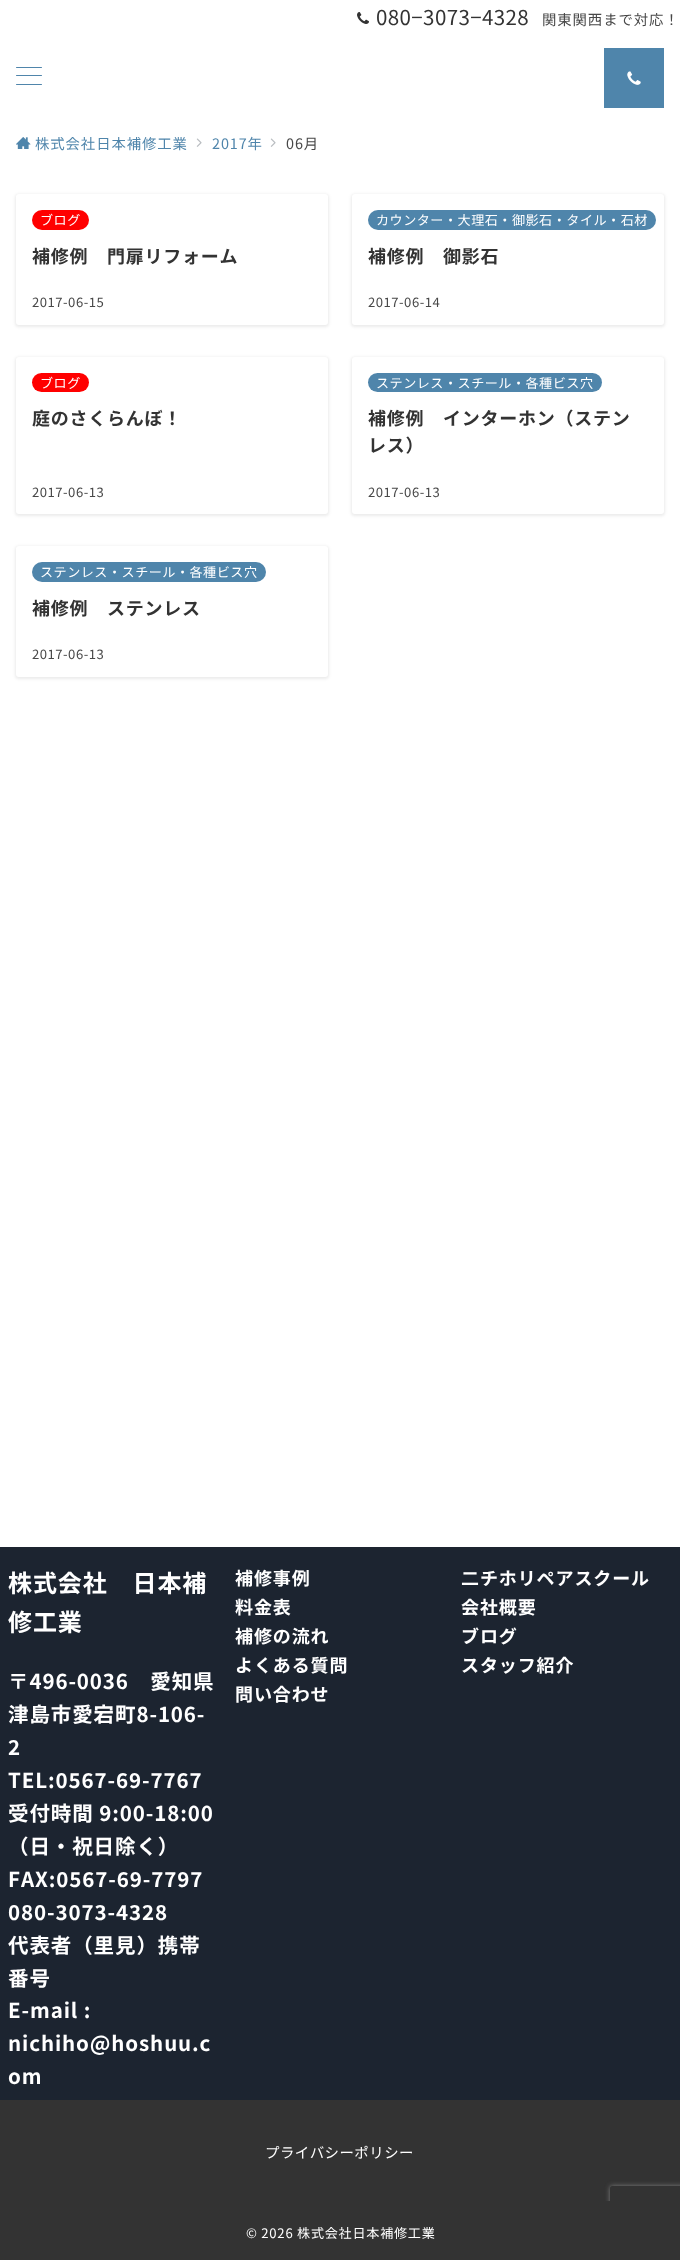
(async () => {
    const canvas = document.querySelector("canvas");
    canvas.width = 680;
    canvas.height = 2260;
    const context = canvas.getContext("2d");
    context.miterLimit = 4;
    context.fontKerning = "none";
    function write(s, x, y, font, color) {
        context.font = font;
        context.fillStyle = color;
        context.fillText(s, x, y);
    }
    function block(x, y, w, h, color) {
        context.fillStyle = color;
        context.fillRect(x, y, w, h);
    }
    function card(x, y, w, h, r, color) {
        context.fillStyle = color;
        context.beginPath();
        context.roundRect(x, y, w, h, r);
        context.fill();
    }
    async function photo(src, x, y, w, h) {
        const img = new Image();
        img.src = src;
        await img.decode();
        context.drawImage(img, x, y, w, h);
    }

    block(0, 0, 680, 2260, "rgb(255, 255, 255)");
    await photo("media/1.png", 357, 12, 12, 12);
    context.letterSpacing = "0.4px";
    write("080−3073−4328", 376, 25, "20.5px Noto Sans JP", "rgb(51, 51, 51)");
    context.letterSpacing = "0.9px";
    write("関東関西まで対応！", 542, 25, "14.4px Noto Sans JP", "rgb(72, 72, 72)");
    card(16, 67, 26, 1, 0.5, "rgb(79, 133, 171)");
    card(16, 75, 26, 1, 0.5, "rgb(79, 133, 171)");
    card(16, 84, 26, 1, 0.5, "rgb(79, 133, 171)");
    block(604, 48, 60, 60, "rgb(79, 133, 171)");
    await photo("media/2.png", 627, 71, 14, 14);
    await photo("media/3.png", 16, 137, 15, 12);
    write("株式会社日本補修工業", 35, 149, "14.4px Noto Sans JP", "rgb(79, 133, 171)");
    await photo("media/4.png", 196, 138, 6, 9);
    write("2017年", 212, 149, "14.4px Noto Sans JP", "rgb(79, 133, 171)");
    await photo("media/4.png", 270, 138, 6, 9);
    write("06月", 286, 149, "14.4px Noto Sans JP", "rgb(72, 72, 72)");
    context.fillStyle = "rgba(0, 0, 0, 0.08)";
    context.filter = "blur(1.5px)";
    context.beginPath();
    context.roundRect(15, 194, 314, 133, 4);
    context.fill();
    context.filter = "none";
    card(16, 194, 312, 131, 3, "rgb(255, 255, 255)");
    card(32, 210, 57, 20, 10, "rgb(255, 0, 0)");
    context.letterSpacing = "0.5px";
    write("ブログ", 40, 225, "13.1px Noto Sans JP", "rgb(255, 255, 255)");
    context.letterSpacing = "0.75px";
    write("補修例　門扉リフォーム", 32, 263, "bold 18px Noto Sans JP", "rgb(51, 51, 51)");
    context.letterSpacing = "0.5px";
    write("2017-06-15", 32, 307, "13.1px Noto Sans JP", "rgb(72, 72, 72)");
    context.fillStyle = "rgba(0, 0, 0, 0.08)";
    context.filter = "blur(1.5px)";
    context.beginPath();
    context.roundRect(351, 194, 314, 133, 4);
    context.fill();
    context.filter = "none";
    card(352, 194, 312, 131, 3, "rgb(255, 255, 255)");
    card(368, 210, 288, 20, 10, "rgb(79, 133, 171)");
    write("カウンター・大理石・御影石・タイル・石材", 376, 225, "13.1px Noto Sans JP", "rgb(255, 255, 255)");
    context.letterSpacing = "0.75px";
    write("補修例　御影石", 368, 263, "bold 18px Noto Sans JP", "rgb(51, 51, 51)");
    context.letterSpacing = "0.5px";
    write("2017-06-14", 368, 307, "13.1px Noto Sans JP", "rgb(72, 72, 72)");
    context.fillStyle = "rgba(0, 0, 0, 0.08)";
    context.filter = "blur(1.5px)";
    context.beginPath();
    context.roundRect(15, 357, 314, 159, 4);
    context.fill();
    context.filter = "none";
    card(16, 357, 312, 157, 3, "rgb(255, 255, 255)");
    card(32, 373, 57, 19, 9.5, "rgb(255, 0, 0)");
    write("ブログ", 40, 388, "13.1px Noto Sans JP", "rgb(255, 255, 255)");
    context.letterSpacing = "0.75px";
    write("庭のさくらんぼ！", 32, 425, "bold 18px Noto Sans JP", "rgb(51, 51, 51)");
    context.letterSpacing = "0.5px";
    write("2017-06-13", 32, 497, "13.1px Noto Sans JP", "rgb(72, 72, 72)");
    context.fillStyle = "rgba(0, 0, 0, 0.08)";
    context.filter = "blur(1.5px)";
    context.beginPath();
    context.roundRect(351, 357, 314, 159, 4);
    context.fill();
    context.filter = "none";
    card(352, 357, 312, 157, 3, "rgb(255, 255, 255)");
    card(368, 373, 234, 19, 9.5, "rgb(79, 133, 171)");
    write("ステンレス・スチール・各種ビス穴", 376, 388, "13.1px Noto Sans JP", "rgb(255, 255, 255)");
    context.letterSpacing = "0.75px";
    write("補修例　インターホン（ステン", 368, 425, "bold 18px Noto Sans JP", "rgb(51, 51, 51)");
    write("レス）", 368, 452, "bold 18px Noto Sans JP", "rgb(51, 51, 51)");
    context.letterSpacing = "0.5px";
    write("2017-06-13", 368, 497, "13.1px Noto Sans JP", "rgb(72, 72, 72)");
    context.fillStyle = "rgba(0, 0, 0, 0.08)";
    context.filter = "blur(1.5px)";
    context.beginPath();
    context.roundRect(15, 546, 314, 133, 4);
    context.fill();
    context.filter = "none";
    card(16, 546, 312, 131, 3, "rgb(255, 255, 255)");
    card(32, 562, 234, 20, 10, "rgb(79, 133, 171)");
    write("ステンレス・スチール・各種ビス穴", 40, 577, "13.1px Noto Sans JP", "rgb(255, 255, 255)");
    context.letterSpacing = "0.75px";
    write("補修例　ステンレス", 32, 615, "bold 18px Noto Sans JP", "rgb(51, 51, 51)");
    context.letterSpacing = "0.5px";
    write("2017-06-13", 32, 659, "13.1px Noto Sans JP", "rgb(72, 72, 72)");
    block(0, 1547, 680, 553, "rgb(28, 36, 48)");
    context.letterSpacing = "0.9px";
    write("株式会社　日本補", 8, 1592, "bold 24px Noto Sans JP", "rgb(255, 255, 255)");
    write("修工業", 8, 1631, "bold 24px Noto Sans JP", "rgb(255, 255, 255)");
    write("〒496-0036　愛知県", 8, 1689, "bold 20.5px Noto Sans JP", "rgb(255, 255, 255)");
    write("津島市愛宕町8-106-", 8, 1722, "bold 20.5px Noto Sans JP", "rgb(255, 255, 255)");
    write("2", 8, 1755, "bold 20.5px Noto Sans JP", "rgb(255, 255, 255)");
    write("TEL:0567-69-7767", 8, 1788, "bold 20.5px Noto Sans JP", "rgb(255, 255, 255)");
    write("受付時間 9:00-18:00", 8, 1821, "bold 20.5px Noto Sans JP", "rgb(255, 255, 255)");
    write("（日・祝日除く）", 8, 1854, "bold 20.5px Noto Sans JP", "rgb(255, 255, 255)");
    write("FAX:0567-69-7797", 8, 1887, "bold 20.5px Noto Sans JP", "rgb(255, 255, 255)");
    write("080-3073-4328", 8, 1920, "bold 20.5px Noto Sans JP", "rgb(255, 255, 255)");
    write("代表者（里見）携帯", 8, 1953, "bold 20.5px Noto Sans JP", "rgb(255, 255, 255)");
    write("番号", 8, 1986, "bold 20.5px Noto Sans JP", "rgb(255, 255, 255)");
    write("E-mail :", 8, 2018, "bold 20.5px Noto Sans JP", "rgb(255, 255, 255)");
    write("nichiho@hoshuu.c", 8, 2051, "bold 20.5px Noto Sans JP", "rgb(255, 255, 255)");
    write("om", 8, 2084, "bold 20.5px Noto Sans JP", "rgb(255, 255, 255)");
    write("補修事例", 235, 1585, "bold 18px Noto Sans JP", "rgb(255, 255, 255)");
    write("料金表", 235, 1614, "bold 18px Noto Sans JP", "rgb(255, 255, 255)");
    write("補修の流れ", 235, 1643, "bold 18px Noto Sans JP", "rgb(255, 255, 255)");
    write("よくある質問", 235, 1672, "bold 18px Noto Sans JP", "rgb(255, 255, 255)");
    write("問い合わせ", 235, 1701, "bold 18px Noto Sans JP", "rgb(255, 255, 255)");
    write("二チホリペアスクール", 461, 1585, "bold 18px Noto Sans JP", "rgb(255, 255, 255)");
    write("会社概要", 461, 1614, "bold 18px Noto Sans JP", "rgb(255, 255, 255)");
    write("ブログ", 461, 1643, "bold 18px Noto Sans JP", "rgb(255, 255, 255)");
    write("スタッフ紹介", 461, 1672, "bold 18px Noto Sans JP", "rgb(255, 255, 255)");
    block(0, 2100, 680, 101, "rgb(51, 51, 51)");
    context.letterSpacing = "0.5px";
    write("プライバシーポリシー", 265, 2158, "14.4px Noto Sans JP", "rgb(255, 255, 255)");
    context.save();
    context.beginPath();
    context.moveTo(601, 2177);
    context.lineTo(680, 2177);
    context.lineTo(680, 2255);
    context.lineTo(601, 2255);
    context.closePath();
    context.moveTo(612, 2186);
    context.lineTo(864, 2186);
    context.bezierCurveTo(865, 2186, 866, 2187, 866, 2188);
    context.lineTo(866, 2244);
    context.bezierCurveTo(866, 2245, 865, 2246, 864, 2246);
    context.lineTo(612, 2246);
    context.bezierCurveTo(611, 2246, 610, 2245, 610, 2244);
    context.lineTo(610, 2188);
    context.bezierCurveTo(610, 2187, 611, 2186, 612, 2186);
    context.closePath();
    context.clip("evenodd");
    context.fillStyle = "rgb(128, 128, 128)";
    context.filter = "blur(2.5px)";
    context.beginPath();
    context.roundRect(610, 2186, 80, 60, 2);
    context.fill();
    context.filter = "none";
    context.restore();
    block(0, 2201, 680, 59, "rgb(51, 51, 51)");
    context.letterSpacing = "0.75px";
    write("© 2026 株式会社日本補修工業", 246, 2238, "13.1px Noto Sans JP", "rgb(255, 255, 255)");
})();
